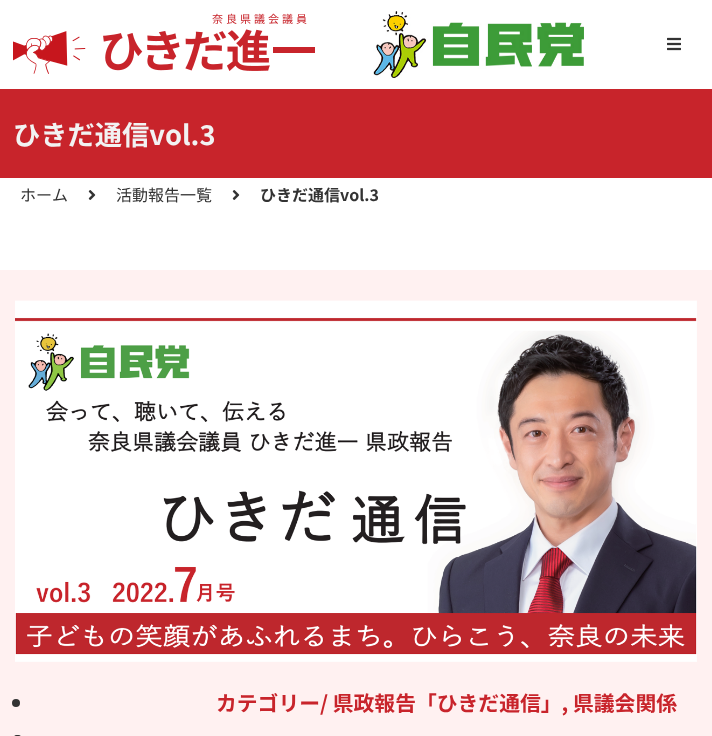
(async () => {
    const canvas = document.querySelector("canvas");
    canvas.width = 712;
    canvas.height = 736;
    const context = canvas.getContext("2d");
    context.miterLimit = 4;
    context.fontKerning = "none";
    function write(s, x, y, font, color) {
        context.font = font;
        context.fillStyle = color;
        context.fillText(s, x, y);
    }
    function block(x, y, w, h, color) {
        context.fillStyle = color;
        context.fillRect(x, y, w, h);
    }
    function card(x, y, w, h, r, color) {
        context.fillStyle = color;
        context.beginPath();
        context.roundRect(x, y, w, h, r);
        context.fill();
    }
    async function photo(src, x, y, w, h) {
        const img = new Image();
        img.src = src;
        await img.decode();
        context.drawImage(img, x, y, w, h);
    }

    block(0, 0, 712, 736, "rgb(255, 255, 255)");
    context.letterSpacing = "3px";
    write("奈良県議会議員", 212, 23, "11px Noto Sans JP", "rgb(200, 36, 43)");
    await photo("media/1.png", 13, 29, 302, 45);
    await photo("media/2.png", 373, 11, 211, 68);
    await photo("media/3.png", 667, 37, 14, 14);
    block(0, 89, 712, 89, "rgb(200, 36, 43)");
    context.letterSpacing = "0px";
    write("ひきだ通信vol.3", 13, 145, "bold 27.25px Noto Sans JP", "rgb(242, 242, 242)");
    write("ホーム", 20, 201, "16px Noto Sans JP", "rgb(51, 51, 51)");
    await photo("media/4.png", 88, 190, 8, 10);
    write("活動報告一覧", 116, 201, "16px Noto Sans JP", "rgb(51, 51, 51)");
    await photo("media/4.png", 232, 190, 8, 10);
    write("ひきだ通信vol.3", 260, 201, "bold 16px Noto Sans JP", "rgb(51, 51, 51)");
    block(0, 270, 712, 466, "rgb(255, 241, 241)");
    await photo("media/5.png", 15, 300, 682, 362);
    context.fillStyle = "rgb(51, 51, 51)";
    context.beginPath();
    context.arc(16, 703, 4, 0, Math.PI * 2);
    context.fill();
    write("カテゴリー/ 県政報告「ひきだ通信」, 県議会関係", 216, 711, "bold 20.8px Noto Sans JP", "rgb(200, 36, 43)");
    card(14, 735, 7, 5, 3.5, "rgb(51, 51, 51)");
})();
